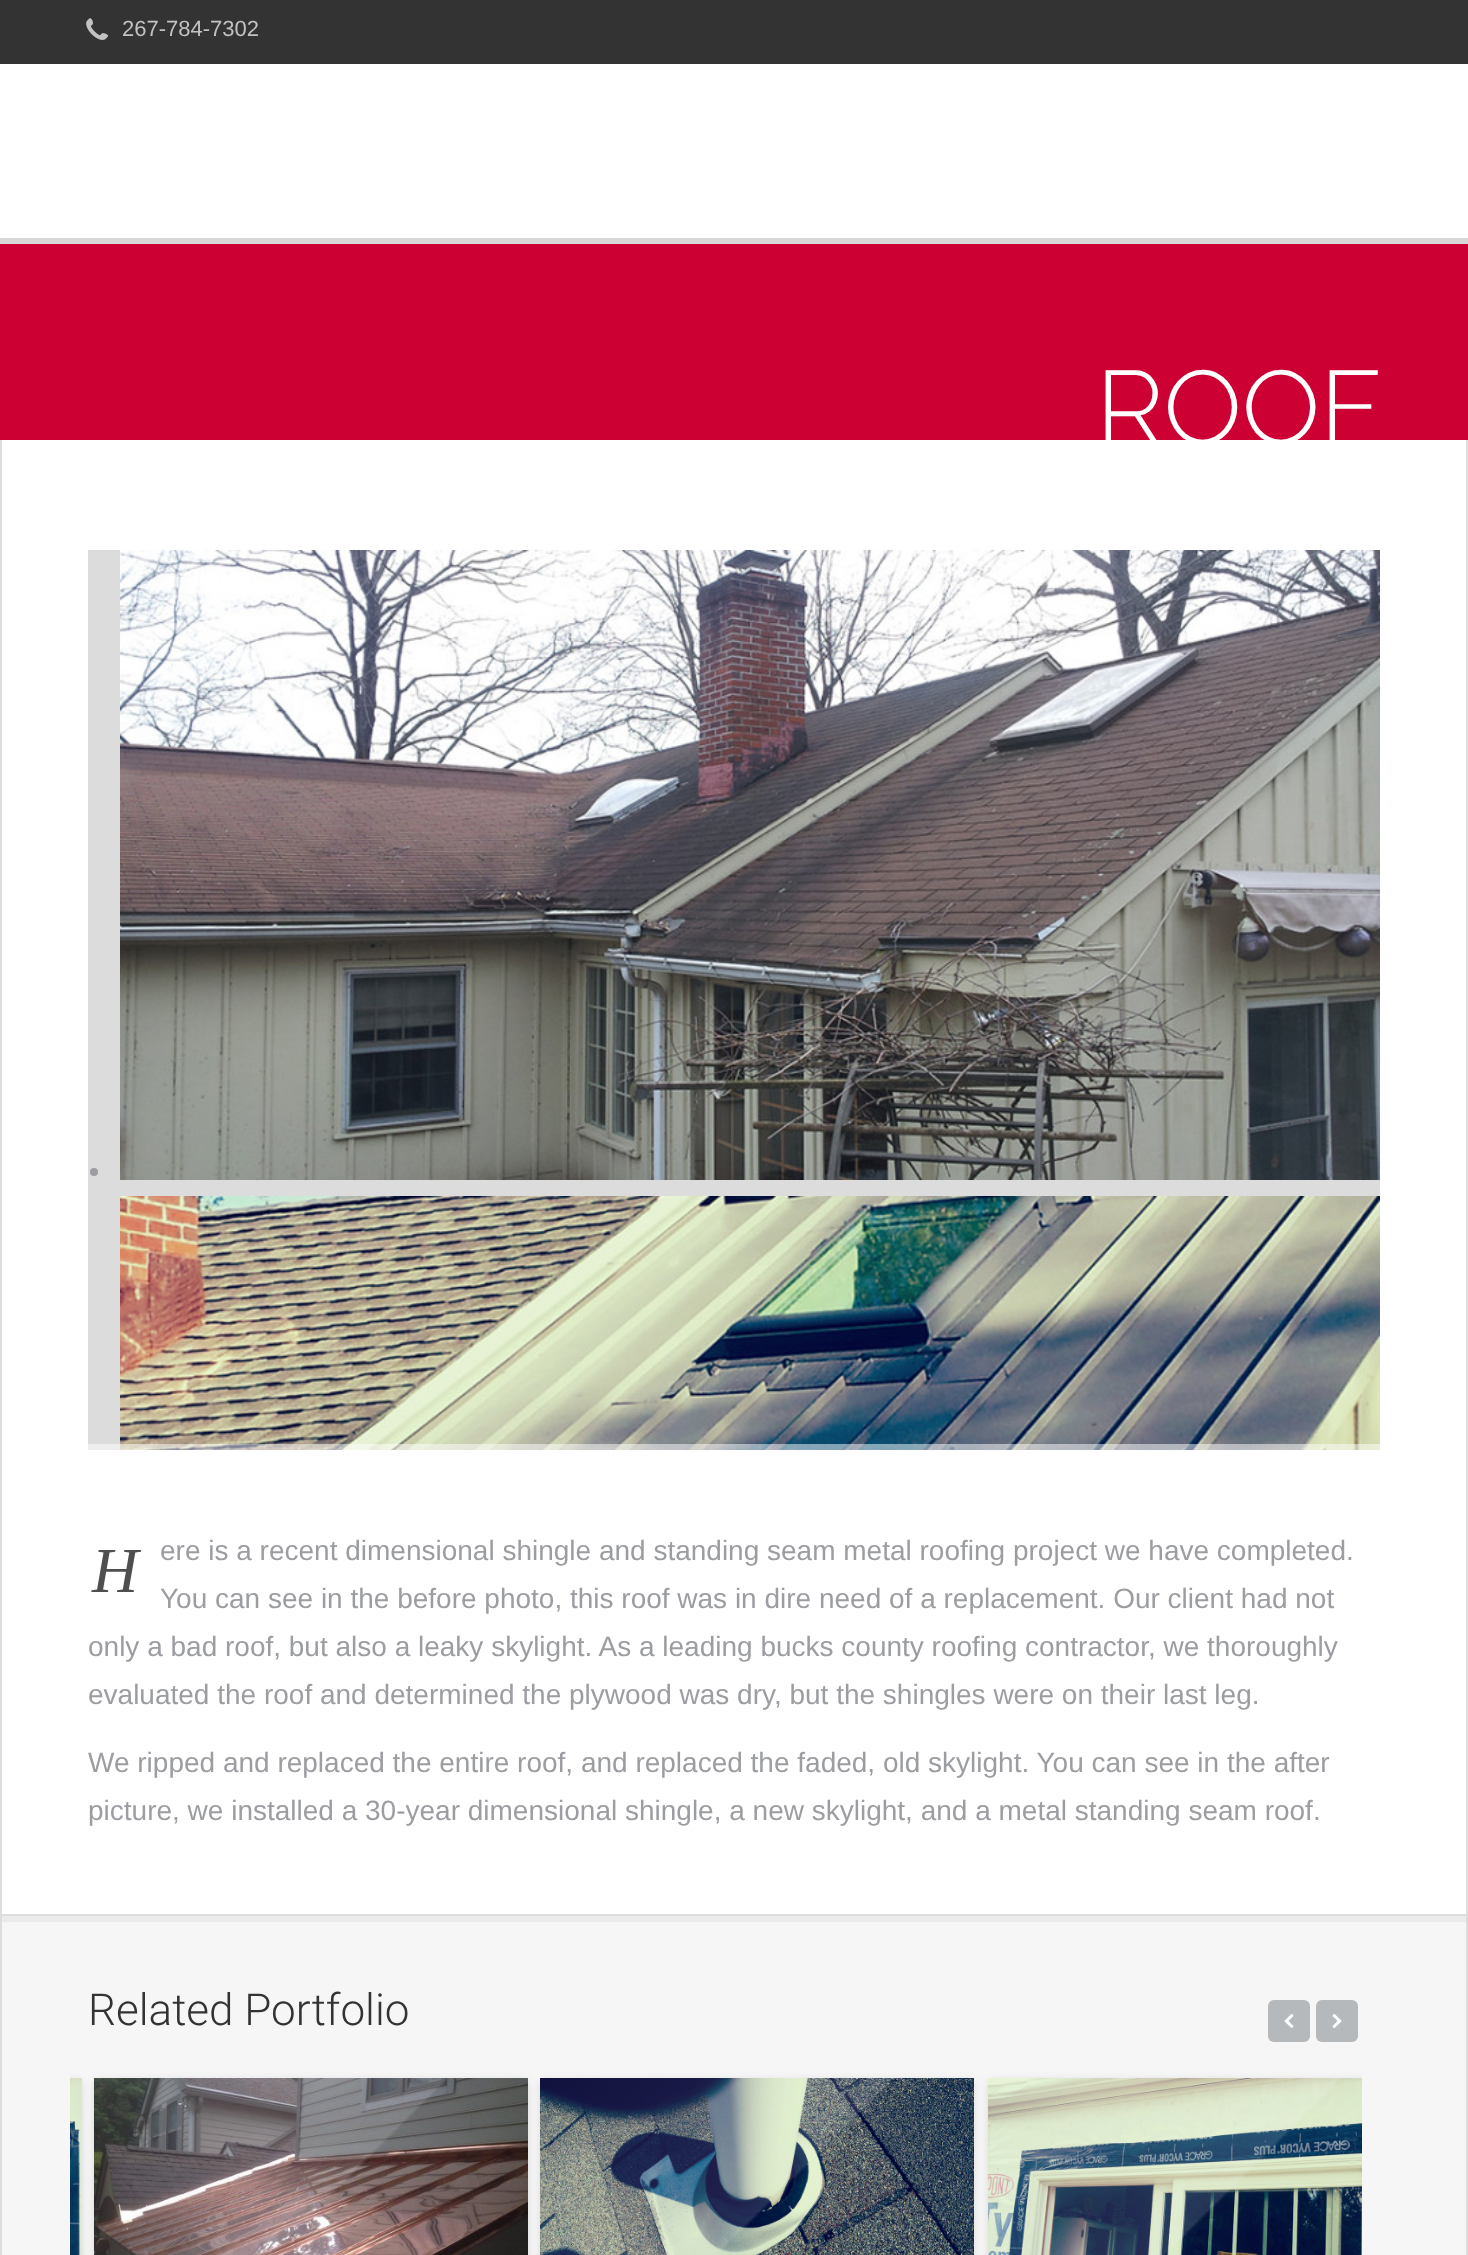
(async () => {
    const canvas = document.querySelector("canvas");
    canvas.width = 1468;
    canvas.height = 2255;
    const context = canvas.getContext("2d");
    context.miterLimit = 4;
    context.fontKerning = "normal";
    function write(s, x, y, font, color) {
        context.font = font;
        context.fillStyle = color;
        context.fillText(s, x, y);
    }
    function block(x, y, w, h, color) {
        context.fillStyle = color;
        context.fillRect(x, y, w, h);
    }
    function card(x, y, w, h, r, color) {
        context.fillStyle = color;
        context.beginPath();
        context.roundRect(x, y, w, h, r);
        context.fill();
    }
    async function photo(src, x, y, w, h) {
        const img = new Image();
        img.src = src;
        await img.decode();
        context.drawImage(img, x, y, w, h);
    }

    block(0, 0, 1468, 2255, "rgb(51, 51, 51)");
    await photo("media/1.png", 86, 18, 22, 22);
    write("267-784-7302", 122, 36, "22px Liberation Sans", "rgb(194, 194, 194)");
    block(0, 64, 1468, 174, "rgb(255, 255, 255)");
    block(0, 238, 1468, 6, "rgb(216, 216, 216)");
    block(0, 244, 1468, 196, "rgb(204, 0, 51)");
    write("ROOF", 1096, 444, "300 104px Raleway", "rgb(255, 255, 255)");
    block(2, 440, 1464, 1474, "rgb(255, 255, 255)");
    block(1466, 440, 2, 1815, "rgb(221, 221, 221)");
    block(0, 440, 2, 1815, "rgb(221, 221, 221)");
    block(88, 550, 1292, 900, "rgb(220, 220, 220)");
    context.fillStyle = "rgb(155, 157, 161)";
    context.beginPath();
    context.arc(94, 1172, 4, 0, Math.PI * 2);
    context.fill();
    await photo("media/2.png", 120, 550, 1260, 630);
    await photo("media/3.png", 120, 1196, 1260, 254);
    block(88, 1444, 1292, 6, "rgba(255, 255, 255, 0.5)");
    write("ere is a recent dimensional shingle and standing seam metal roofing project we have completed.", 160, 1560, "28px Liberation Sans", "rgb(155, 157, 161)");
    write("You can see in the before photo, this roof was in dire need of a replacement. Our client had not", 160, 1608, "28px Liberation Sans", "rgb(155, 157, 161)");
    write("only a bad roof, but also a leaky skylight. As a leading bucks county roofing contractor, we thoroughly", 88, 1656, "28px Liberation Sans", "rgb(155, 157, 161)");
    write("evaluated the roof and determined the plywood was dry, but the shingles were on their last leg.", 88, 1704, "28px Liberation Sans", "rgb(155, 157, 161)");
    write("H", 92, 1592, "italic 64px Liberation Serif", "rgb(79, 79, 79)");
    write("We ripped and replaced the entire roof, and replaced the faded, old skylight. You can see in the after", 88, 1772, "28px Liberation Sans", "rgb(155, 157, 161)");
    write("picture, we installed a 30-year dimensional shingle, a new skylight, and a metal standing seam roof.", 88, 1820, "28px Liberation Sans", "rgb(155, 157, 161)");
    block(2, 1922, 1464, 333, "rgb(246, 246, 246)");
    block(2, 1916, 1464, 6, "rgb(235, 235, 235)");
    block(2, 1914, 1464, 2, "rgb(221, 221, 221)");
    write("Related Portfolio", 88, 2025, "300 44px Roboto", "rgb(51, 51, 51)");
    card(1268, 2000, 42, 42, 6, "rgb(181, 185, 188)");
    await photo("media/4.png", 1284, 2014, 10, 14);
    card(1316, 2000, 42, 42, 6, "rgb(181, 185, 188)");
    await photo("media/5.png", 1332, 2014, 10, 14);
    context.save();
    context.beginPath();
    context.rect(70, 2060, 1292, 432);
    context.clip();
    context.fillStyle = "rgba(50, 50, 50, 0.23)";
    context.filter = "blur(5px)";
    context.beginPath();
    context.rect(-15, 2082, 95, 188);
    context.fill();
    context.filter = "none";
    context.restore();
    await photo("media/6.png", 70, 2078, 12, 177);
    context.fillStyle = "rgba(50, 50, 50, 0.23)";
    context.filter = "blur(5px)";
    context.beginPath();
    context.rect(96, 2082, 430, 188);
    context.fill();
    context.filter = "none";
    await photo("media/7.png", 94, 2078, 434, 177);
    await photo("media/8.png", 94, 2078, 354, 177);
    context.filter = "blur(5px)";
    context.beginPath();
    context.rect(542, 2082, 430, 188);
    context.fill();
    context.filter = "none";
    await photo("media/9.png", 540, 2078, 434, 177);
    await photo("media/10.png", 540, 2078, 355, 177);
    context.save();
    context.beginPath();
    context.rect(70, 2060, 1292, 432);
    context.clip();
    context.filter = "blur(5px)";
    context.beginPath();
    context.rect(990, 2082, 430, 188);
    context.fill();
    context.filter = "none";
    context.restore();
    await photo("media/11.png", 988, 2078, 374, 177);
    await photo("media/12.png", 988, 2078, 353, 177);
})();
